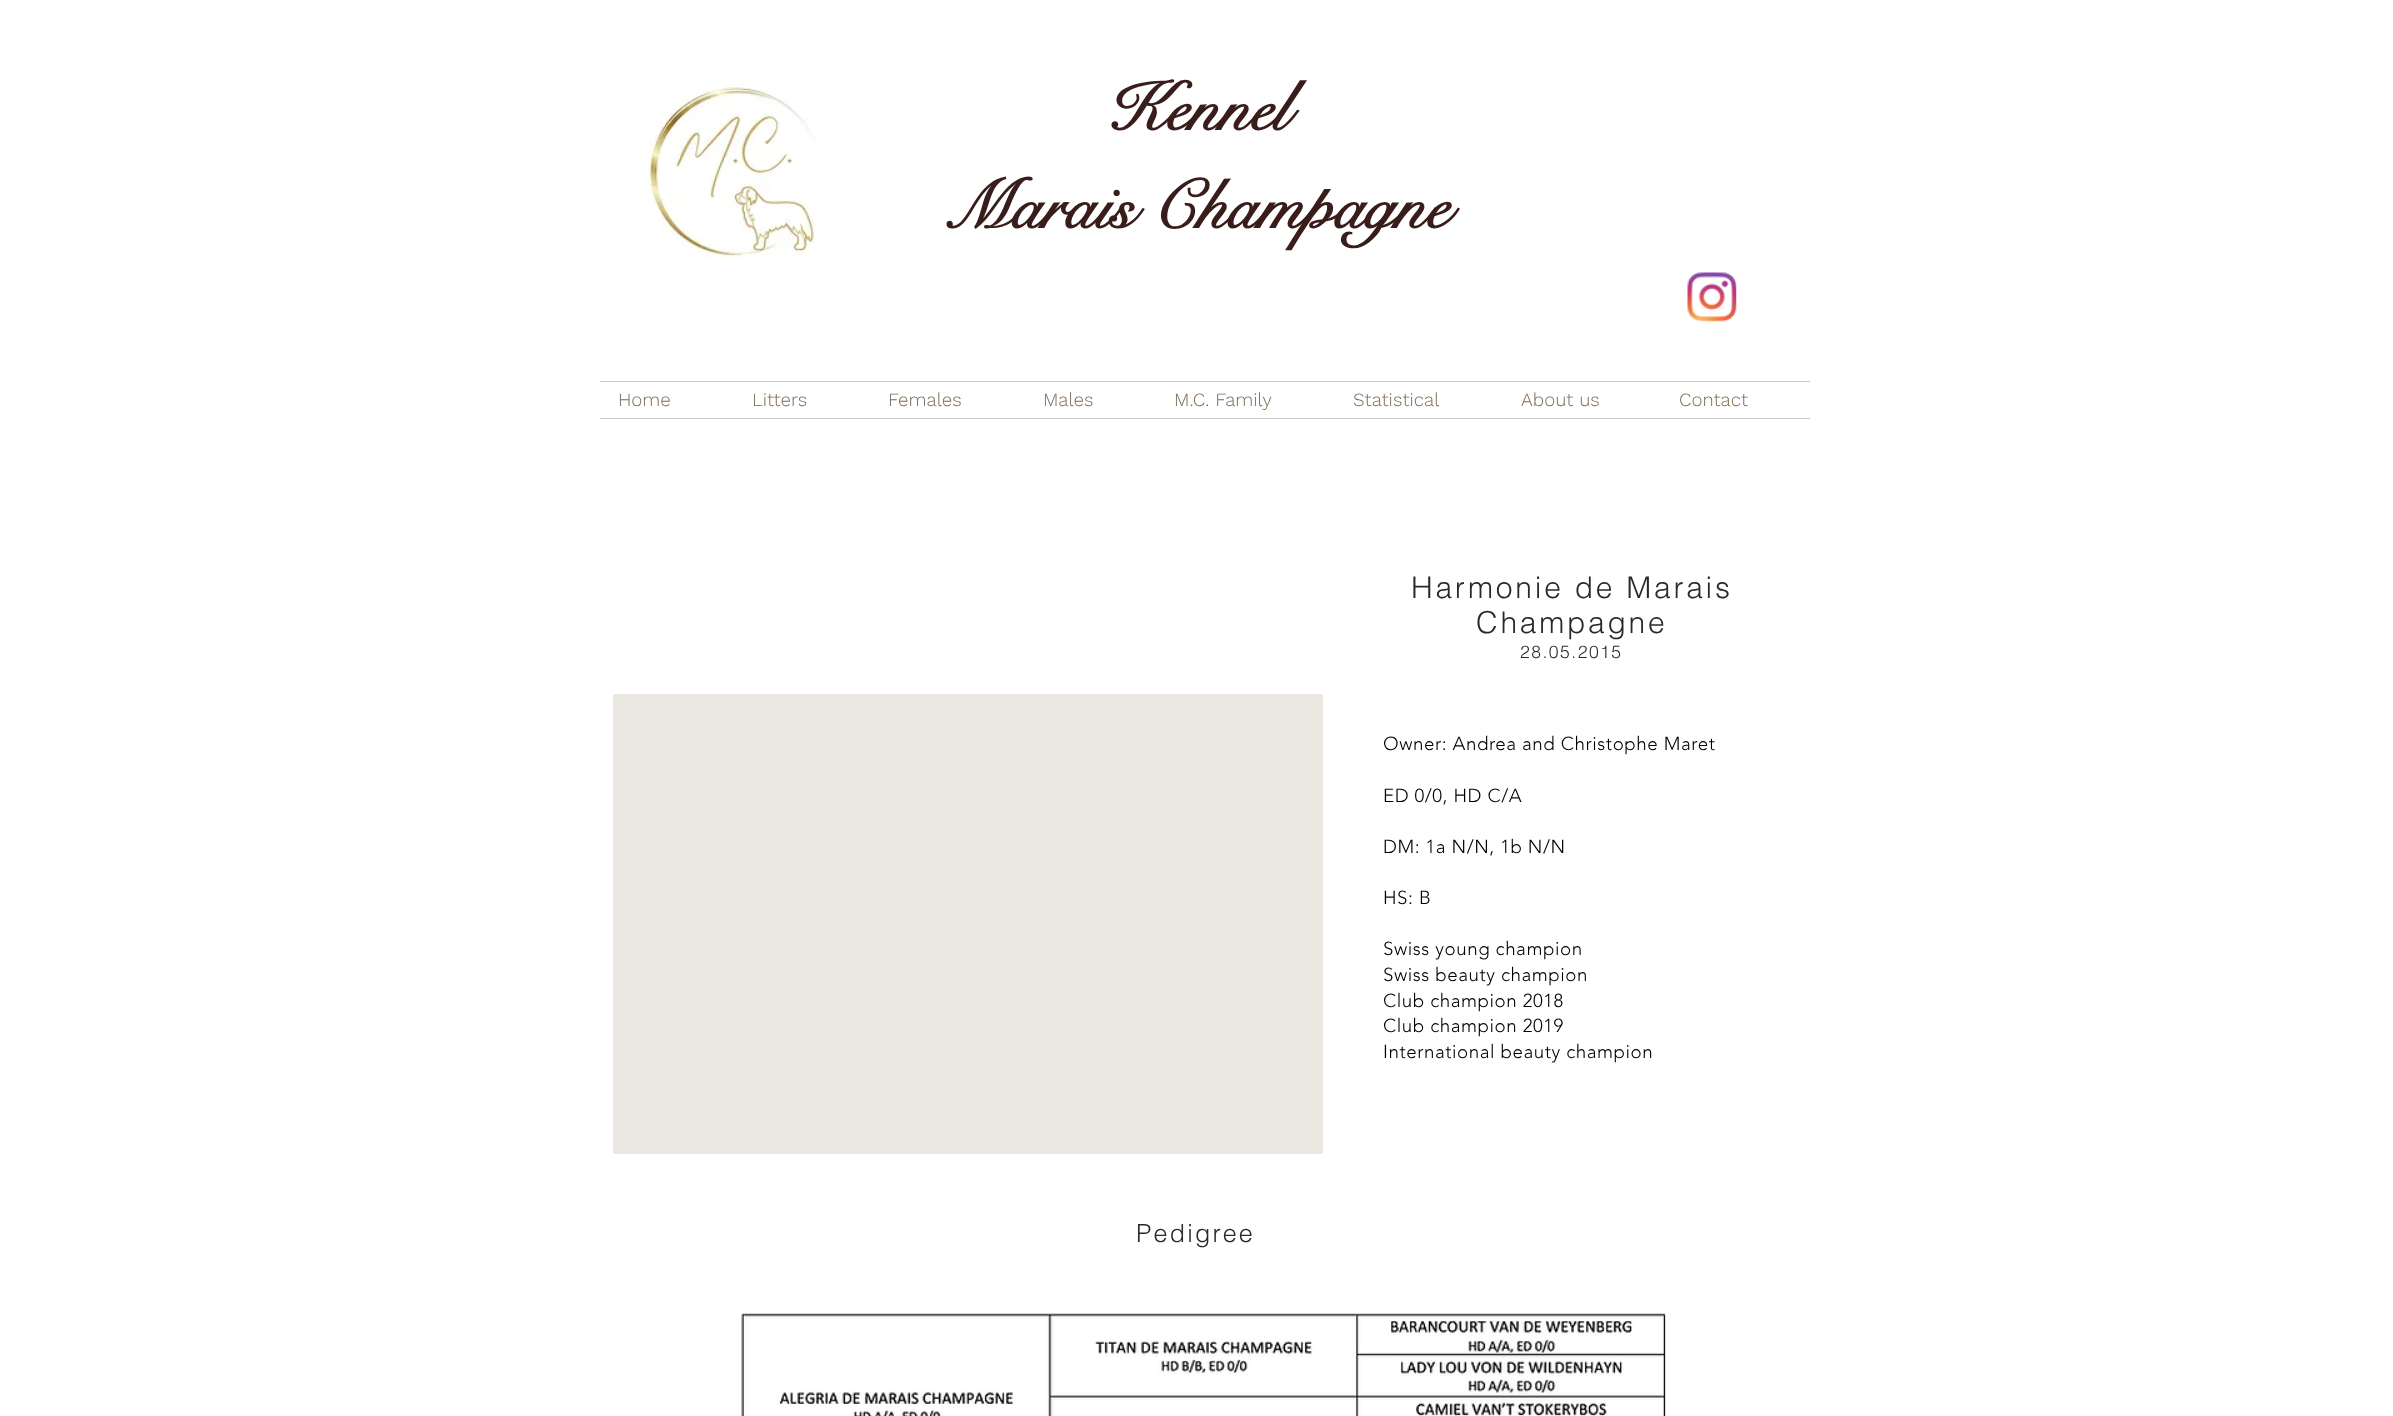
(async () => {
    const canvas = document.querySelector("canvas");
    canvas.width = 2393;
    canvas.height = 1416;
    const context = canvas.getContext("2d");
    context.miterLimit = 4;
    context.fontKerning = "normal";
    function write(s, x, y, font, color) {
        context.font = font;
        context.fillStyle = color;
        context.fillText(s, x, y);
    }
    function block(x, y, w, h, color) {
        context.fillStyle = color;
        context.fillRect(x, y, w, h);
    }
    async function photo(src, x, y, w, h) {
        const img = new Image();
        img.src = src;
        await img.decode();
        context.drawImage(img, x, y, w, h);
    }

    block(0, 0, 2393, 1416, "rgb(255, 255, 255)");
    await photo("media/1.png", 648, 84, 173, 175);
    write("Kennel", 1105, 130, "bold 68.75px 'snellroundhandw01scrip'", "rgb(56, 29, 27)");
    write("Marais Champagne", 943, 228, "bold 68.75px 'snellroundhandw01scrip'", "rgb(56, 29, 27)");
    await photo("media/2.png", 1687, 272, 50, 50);
    block(600, 381, 1210, 1, "rgb(202, 202, 202)");
    block(600, 418, 1210, 1, "rgb(202, 202, 202)");
    write("Home", 618, 406, "300 18.75px Work Sans", "rgb(125, 107, 85)");
    write("Litters", 752, 406, "300 18.75px Work Sans", "rgb(125, 107, 85)");
    write("Females", 888, 406, "300 18.75px Work Sans", "rgb(125, 107, 85)");
    write("Males", 1043, 406, "300 18.75px Work Sans", "rgb(125, 107, 85)");
    write("M.C. Family", 1174, 406, "300 18.75px Work Sans", "rgb(125, 107, 85)");
    write("Statistical", 1353, 406, "300 18.75px Work Sans", "rgb(125, 107, 85)");
    write("About us", 1521, 406, "300 18.75px Work Sans", "rgb(125, 107, 85)");
    write("Contact", 1679, 406, "300 18.75px Work Sans", "rgb(125, 107, 85)");
    context.letterSpacing = "2.75px";
    write("Harmonie de Marais", 1411, 598, "300 30px helvetica", "rgb(41, 41, 41)");
    write("Champagne", 1476, 633, "300 30px helvetica", "rgb(41, 41, 41)");
    context.letterSpacing = "1.5px";
    write("28.05.2015", 1520, 658, "300 17.5px helvetica", "rgb(41, 41, 41)");
    block(613, 694, 710, 460, "rgb(235, 231, 225)");
    context.letterSpacing = "0.55px";
    write("Owner: Andrea and Christophe Maret", 1383, 750, "300 18.75px 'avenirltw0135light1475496'", "rgb(0, 0, 0)");
    write("ED 0/0, HD C/A", 1383, 802, "300 18.75px 'avenirltw0135light1475496'", "rgb(0, 0, 0)");
    write("DM: 1a N/N, 1b N/N", 1383, 853, "300 18.75px 'avenirltw0135light1475496'", "rgb(0, 0, 0)");
    write("HS: B", 1383, 904, "300 18.75px 'avenirltw0135light1475496'", "rgb(0, 0, 0)");
    write("Swiss young champion", 1383, 955, "300 18.75px 'avenirltw0135light1475496'", "rgb(0, 0, 0)");
    write("Swiss beauty champion", 1383, 981, "300 18.75px 'avenirltw0135light1475496'", "rgb(0, 0, 0)");
    write("Club champion 2018", 1383, 1007, "300 18.75px 'avenirltw0135light1475496'", "rgb(0, 0, 0)");
    write("Club champion 2019", 1383, 1032, "300 18.75px 'avenirltw0135light1475496'", "rgb(0, 0, 0)");
    write("International beauty champion", 1383, 1058, "300 18.75px 'avenirltw0135light1475496'", "rgb(0, 0, 0)");
    context.letterSpacing = "2.25px";
    write("Pedigree", 1136, 1242, "300 25px helvetica", "rgb(41, 41, 41)");
    await photo("media/3.png", 741, 1313, 925, 103);
})();
